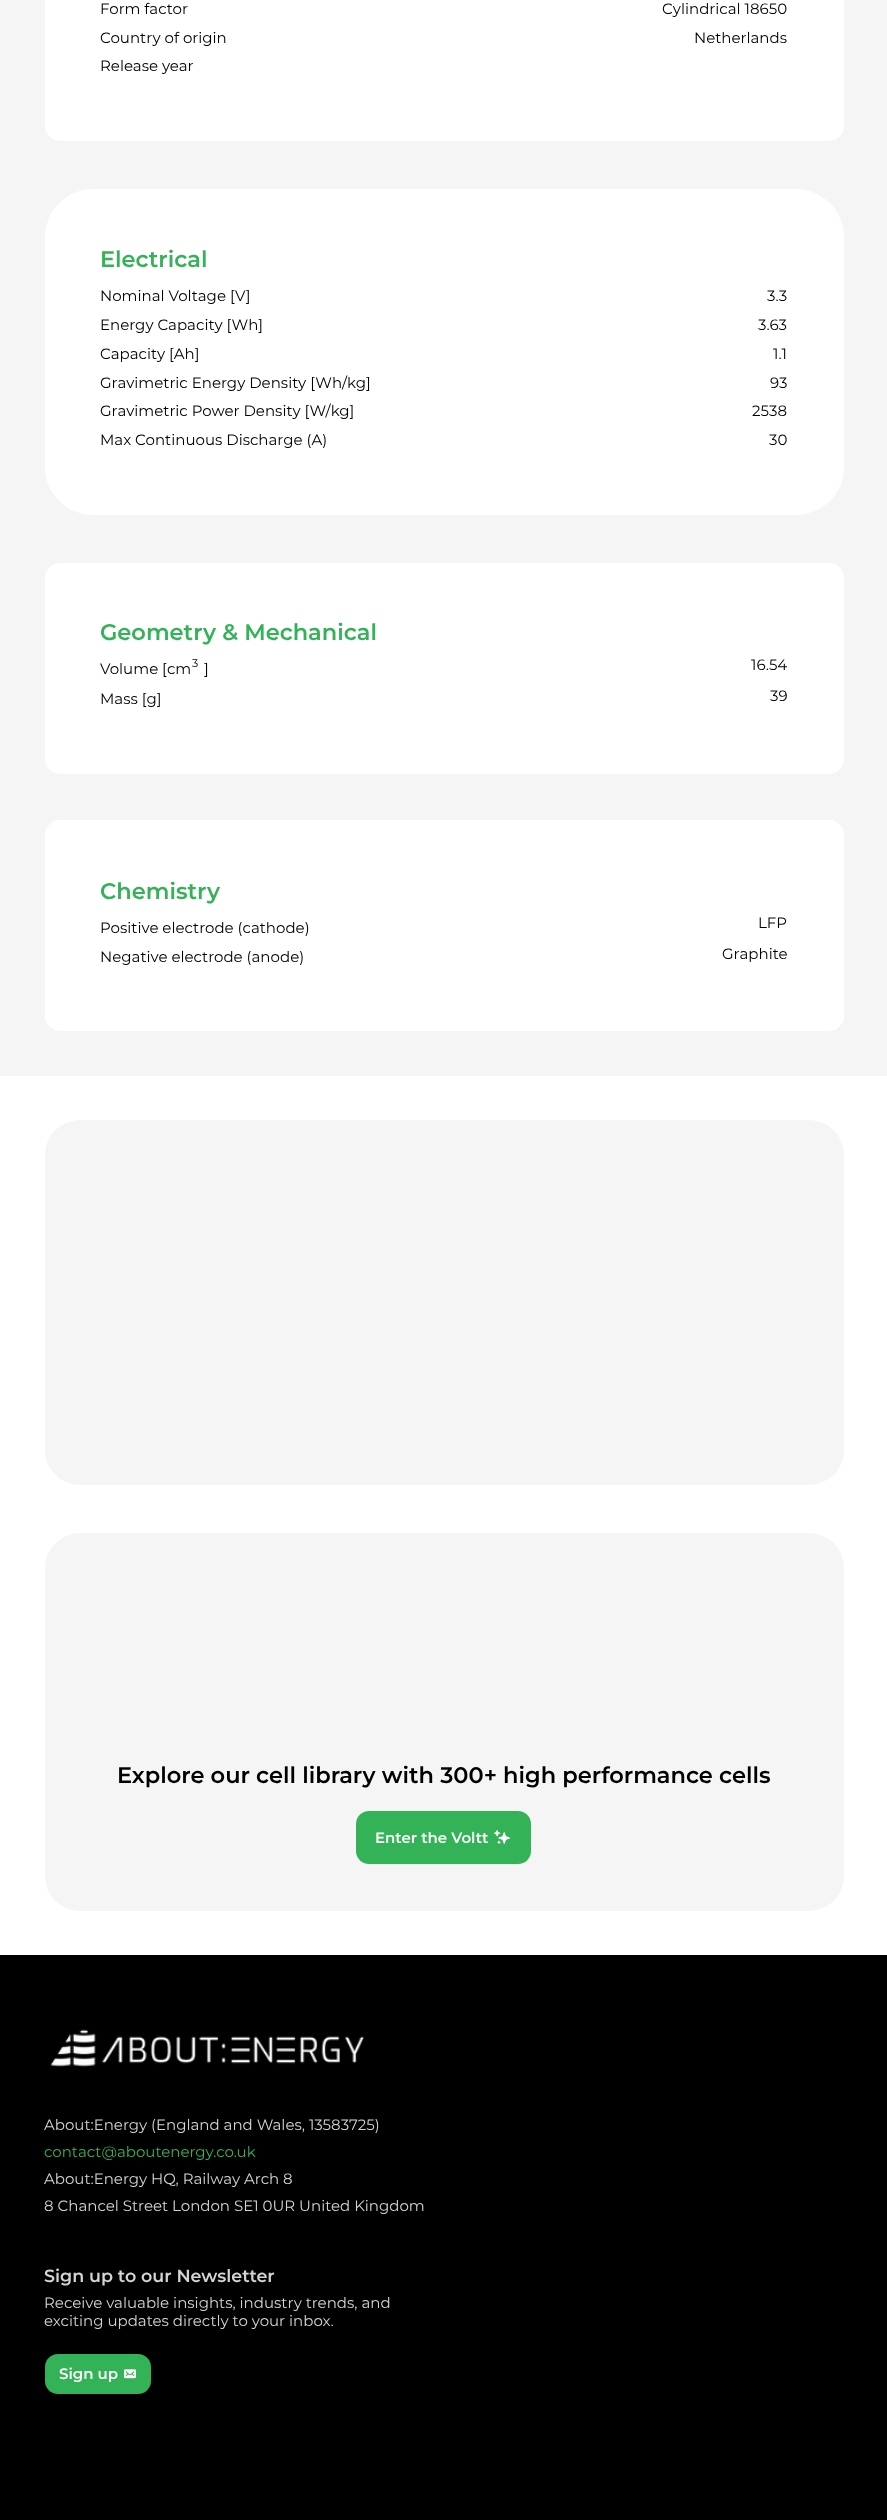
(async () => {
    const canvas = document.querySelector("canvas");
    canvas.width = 887;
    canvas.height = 2520;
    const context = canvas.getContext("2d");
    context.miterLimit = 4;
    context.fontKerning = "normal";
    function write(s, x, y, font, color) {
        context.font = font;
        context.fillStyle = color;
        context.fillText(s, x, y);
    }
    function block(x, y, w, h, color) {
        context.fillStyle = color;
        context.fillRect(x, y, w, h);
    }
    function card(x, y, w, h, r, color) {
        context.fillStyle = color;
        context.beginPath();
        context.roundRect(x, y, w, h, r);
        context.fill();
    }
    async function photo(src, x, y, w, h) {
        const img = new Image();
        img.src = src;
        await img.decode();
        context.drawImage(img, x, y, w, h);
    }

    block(0, 0, 887, 2520, "rgb(0, 0, 0)");
    block(0, 0, 887, 1076, "rgb(245, 245, 245)");
    card(45, -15, 799, 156, 15, "rgb(255, 255, 255)");
    write("Form factor", 100, 14, "15px Montserrat", "rgb(0, 0, 0)");
    write("Country of origin", 100, 43, "15px Montserrat", "rgb(0, 0, 0)");
    write("Release year", 100, 71, "15px Montserrat", "rgb(0, 0, 0)");
    write("Cylindrical 18650", 662, 14, "15px Montserrat", "rgb(0, 0, 0)");
    write("Netherlands", 694, 43, "15px Montserrat", "rgb(0, 0, 0)");
    card(45, 189, 799, 326, 48, "rgb(255, 255, 255)");
    write("Electrical", 100, 267, "600 22.5px Montserrat", "rgb(51, 178, 87)");
    write("Nominal Voltage [V]", 100, 301, "15px Montserrat", "rgb(0, 0, 0)");
    write("Energy Capacity [Wh]", 100, 330, "15px Montserrat", "rgb(0, 0, 0)");
    write("Capacity [Ah]", 100, 359, "15px Montserrat", "rgb(0, 0, 0)");
    write("Gravimetric Energy Density [Wh/kg]", 100, 388, "15px Montserrat", "rgb(0, 0, 0)");
    write("Gravimetric Power Density [W/kg]", 100, 416, "15px Montserrat", "rgb(0, 0, 0)");
    write("Max Continuous Discharge (A)", 100, 445, "15px Montserrat", "rgb(0, 0, 0)");
    write("3.3", 767, 301, "15px Montserrat", "rgb(0, 0, 0)");
    write("3.63", 758, 330, "15px Montserrat", "rgb(0, 0, 0)");
    write("1.1", 773, 359, "15px Montserrat", "rgb(0, 0, 0)");
    write("93", 770, 388, "15px Montserrat", "rgb(0, 0, 0)");
    write("2538", 752, 416, "15px Montserrat", "rgb(0, 0, 0)");
    write("30", 769, 445, "15px Montserrat", "rgb(0, 0, 0)");
    card(45, 563, 799, 211, 15, "rgb(255, 255, 255)");
    write("Geometry & Mechanical", 100, 640, "600 22.5px Montserrat", "rgb(51, 178, 87)");
    write("Volume [cm", 100, 674, "15px Montserrat", "rgb(0, 0, 0)");
    write("3", 192, 667, "11px Montserrat", "rgb(0, 0, 0)");
    write("]", 204, 674, "15px Montserrat", "rgb(0, 0, 0)");
    write("Mass [g]", 100, 704, "15px Montserrat", "rgb(0, 0, 0)");
    write("16.54", 751, 670, "15px Montserrat", "rgb(0, 0, 0)");
    write("39", 770, 701, "15px Montserrat", "rgb(0, 0, 0)");
    card(45, 820, 799, 211, 15, "rgb(255, 255, 255)");
    write("Chemistry", 100, 899, "600 22.5px Montserrat", "rgb(51, 178, 87)");
    write("Positive electrode (cathode)", 100, 933, "15px Montserrat", "rgb(0, 0, 0)");
    write("Negative electrode (anode)", 100, 962, "15px Montserrat", "rgb(0, 0, 0)");
    write("LFP", 758, 928, "15px Montserrat", "rgb(0, 0, 0)");
    write("Graphite", 722, 959, "15px Montserrat", "rgb(0, 0, 0)");
    block(0, 1076, 887, 879, "rgb(255, 255, 255)");
    card(45, 1120, 799, 365, 35, "rgb(245, 245, 245)");
    card(45, 1533, 799, 378, 35, "rgb(245, 245, 245)");
    write("Explore our cell library with 300+ high performance cells", 117, 1783, "600 22.5px Montserrat", "rgb(0, 0, 0)");
    card(356, 1811, 175, 53, 13, "rgb(51, 178, 87)");
    write("Enter the Voltt", 375, 1843, "600 15px Montserrat", "rgb(255, 255, 255)");
    await photo("media/1.png", 493, 1830, 17, 14);
    await photo("media/2.png", 50, 2029, 315, 38);
    write("About:Energy (England and Wales, 13583725)", 44, 2130, "15px 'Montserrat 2'", "rgb(212, 212, 212)");
    write("contact@aboutenergy.co.uk", 44, 2157, "15px 'Montserrat 2'", "rgb(51, 178, 87)");
    write("About:Energy HQ, Railway Arch 8", 44, 2184, "15px 'Montserrat 2'", "rgb(212, 212, 212)");
    write("8 Chancel Street London SE1 0UR United Kingdom", 44, 2211, "15px 'Montserrat 2'", "rgb(212, 212, 212)");
    write("Sign up to our Newsletter", 44, 2282, "600 17.5px Montserrat", "rgb(212, 212, 212)");
    write("Receive valuable insights, industry trends, and", 44, 2308, "15px 'Montserrat 2'", "rgb(212, 212, 212)");
    write("exciting updates directly to your inbox.", 44, 2326, "15px 'Montserrat 2'", "rgb(212, 212, 212)");
    card(45, 2354, 106, 40, 13, "rgb(51, 178, 87)");
    write("Sign up", 59, 2379, "600 15px Montserrat", "rgb(255, 255, 255)");
    await photo("media/3.png", 124, 2369, 12, 10);
})();
